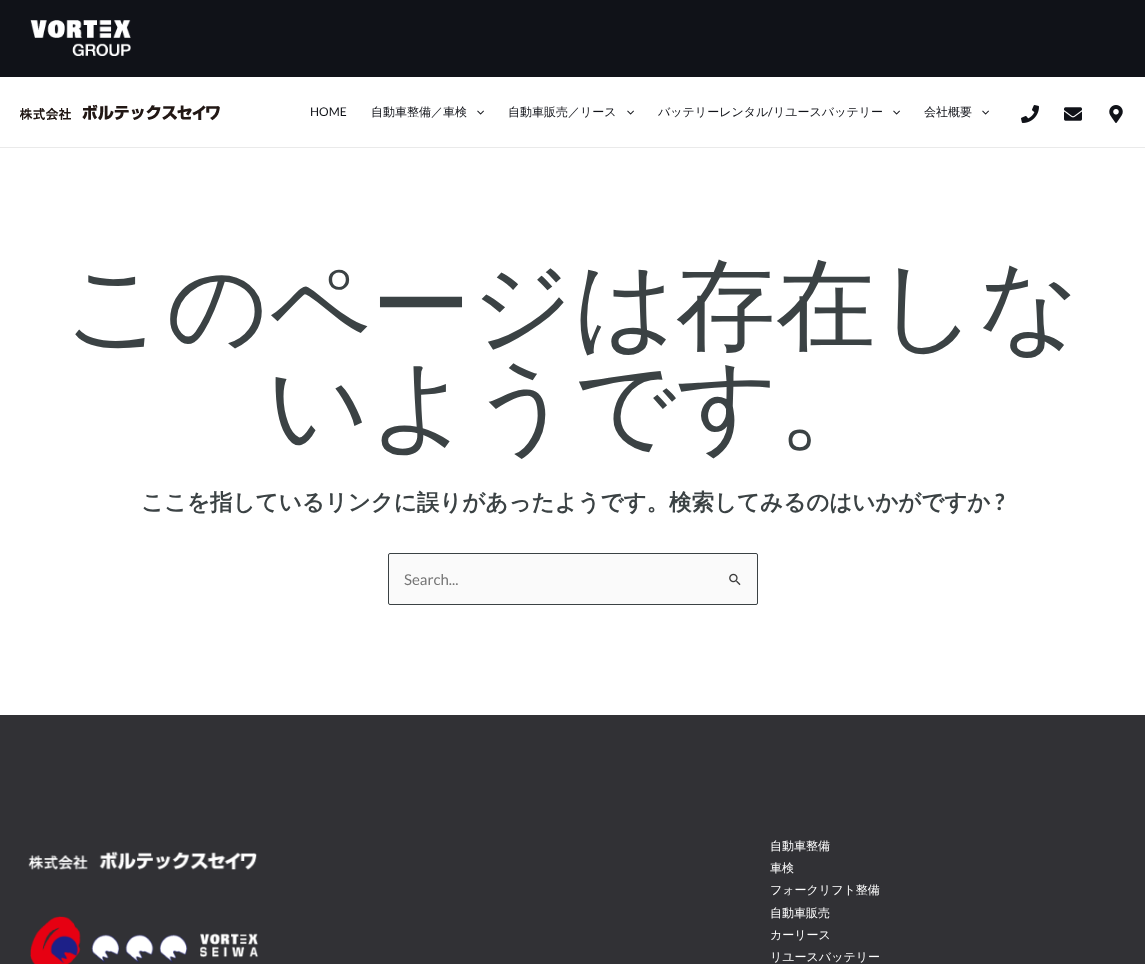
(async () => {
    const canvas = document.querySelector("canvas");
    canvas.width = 1145;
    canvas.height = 964;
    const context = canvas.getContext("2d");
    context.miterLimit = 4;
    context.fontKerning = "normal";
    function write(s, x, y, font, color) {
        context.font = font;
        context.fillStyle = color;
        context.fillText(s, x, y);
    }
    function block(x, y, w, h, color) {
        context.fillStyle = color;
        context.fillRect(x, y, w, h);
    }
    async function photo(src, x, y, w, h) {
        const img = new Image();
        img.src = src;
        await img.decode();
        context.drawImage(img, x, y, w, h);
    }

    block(0, 0, 1145, 964, "rgb(255, 255, 255)");
    block(0, 0, 1145, 77, "rgb(16, 18, 24)");
    await photo("media/1.png", 30, 20, 101, 36);
    block(0, 147, 1145, 1, "rgb(234, 234, 234)");
    await photo("media/2.png", 20, 104, 200, 17);
    write("HOME", 310, 116, "12px Lato", "rgb(16, 18, 24)");
    write("自動車整備／車検", 371, 116, "500 12px WenQuanYi Zen Hei", "rgb(16, 18, 24)");
    await photo("media/3.png", 477, 110, 7, 5);
    write("自動車販売／リース", 508, 116, "500 12px WenQuanYi Zen Hei", "rgb(16, 18, 24)");
    await photo("media/3.png", 627, 110, 7, 5);
    write("バッテリーレンタル", 658, 116, "500 12px WenQuanYi Zen Hei", "rgb(16, 18, 24)");
    write("/", 768, 116, "12px Lato", "rgb(16, 18, 24)");
    write("リユースバッテリー", 773, 116, "500 12px WenQuanYi Zen Hei", "rgb(16, 18, 24)");
    await photo("media/3.png", 893, 110, 7, 5);
    write("会社概要", 924, 116, "500 12px WenQuanYi Zen Hei", "rgb(16, 18, 24)");
    await photo("media/3.png", 982, 110, 7, 5);
    await photo("media/4.png", 1021, 105, 18, 18);
    await photo("media/5.png", 1064, 107, 18, 14);
    await photo("media/6.png", 1109, 105, 14, 18);
    write("このページは存在しな", 64, 340, "500 100px WenQuanYi Zen Hei", "rgb(59, 66, 68)");
    write("いようです。", 267, 440, "500 100px WenQuanYi Zen Hei", "rgb(59, 66, 68)");
    write("ここを指しているリンクに誤りがあったようです。検索してみるのはいかがですか", 141, 510, "bold 22.5px WenQuanYi Zen Hei", "rgb(59, 66, 68)");
    write("?", 995, 510, "bold 22.5px Lato", "rgb(59, 66, 68)");
    context.fillStyle = "rgb(250, 250, 250)";
    context.beginPath();
    context.roundRect(388.5, 553.5, 369, 51, 1.5);
    context.fill();
    context.strokeStyle = "rgb(59, 66, 68)";
    context.stroke();
    write("Search...", 404, 585, "15px Lato", "rgb(117, 117, 117)");
    await photo("media/7.png", 729, 573, 12, 13);
    block(0, 715, 1145, 249, "rgb(49, 49, 53)");
    await photo("media/8.png", 28, 851, 229, 19);
    await photo("media/9.png", 30, 916, 229, 48);
    write("自動車整備", 770, 850, "500 12px WenQuanYi Zen Hei", "rgb(255, 255, 255)");
    write("車検", 770, 872, "500 12px WenQuanYi Zen Hei", "rgb(255, 255, 255)");
    write("フォークリフト整備", 770, 894, "500 12px WenQuanYi Zen Hei", "rgb(255, 255, 255)");
    write("自動車販売", 770, 917, "500 12px WenQuanYi Zen Hei", "rgb(255, 255, 255)");
    write("カーリース", 770, 939, "500 12px WenQuanYi Zen Hei", "rgb(255, 255, 255)");
    write("リユースバッテリー", 770, 961, "500 12px WenQuanYi Zen Hei", "rgb(255, 255, 255)");
})();
